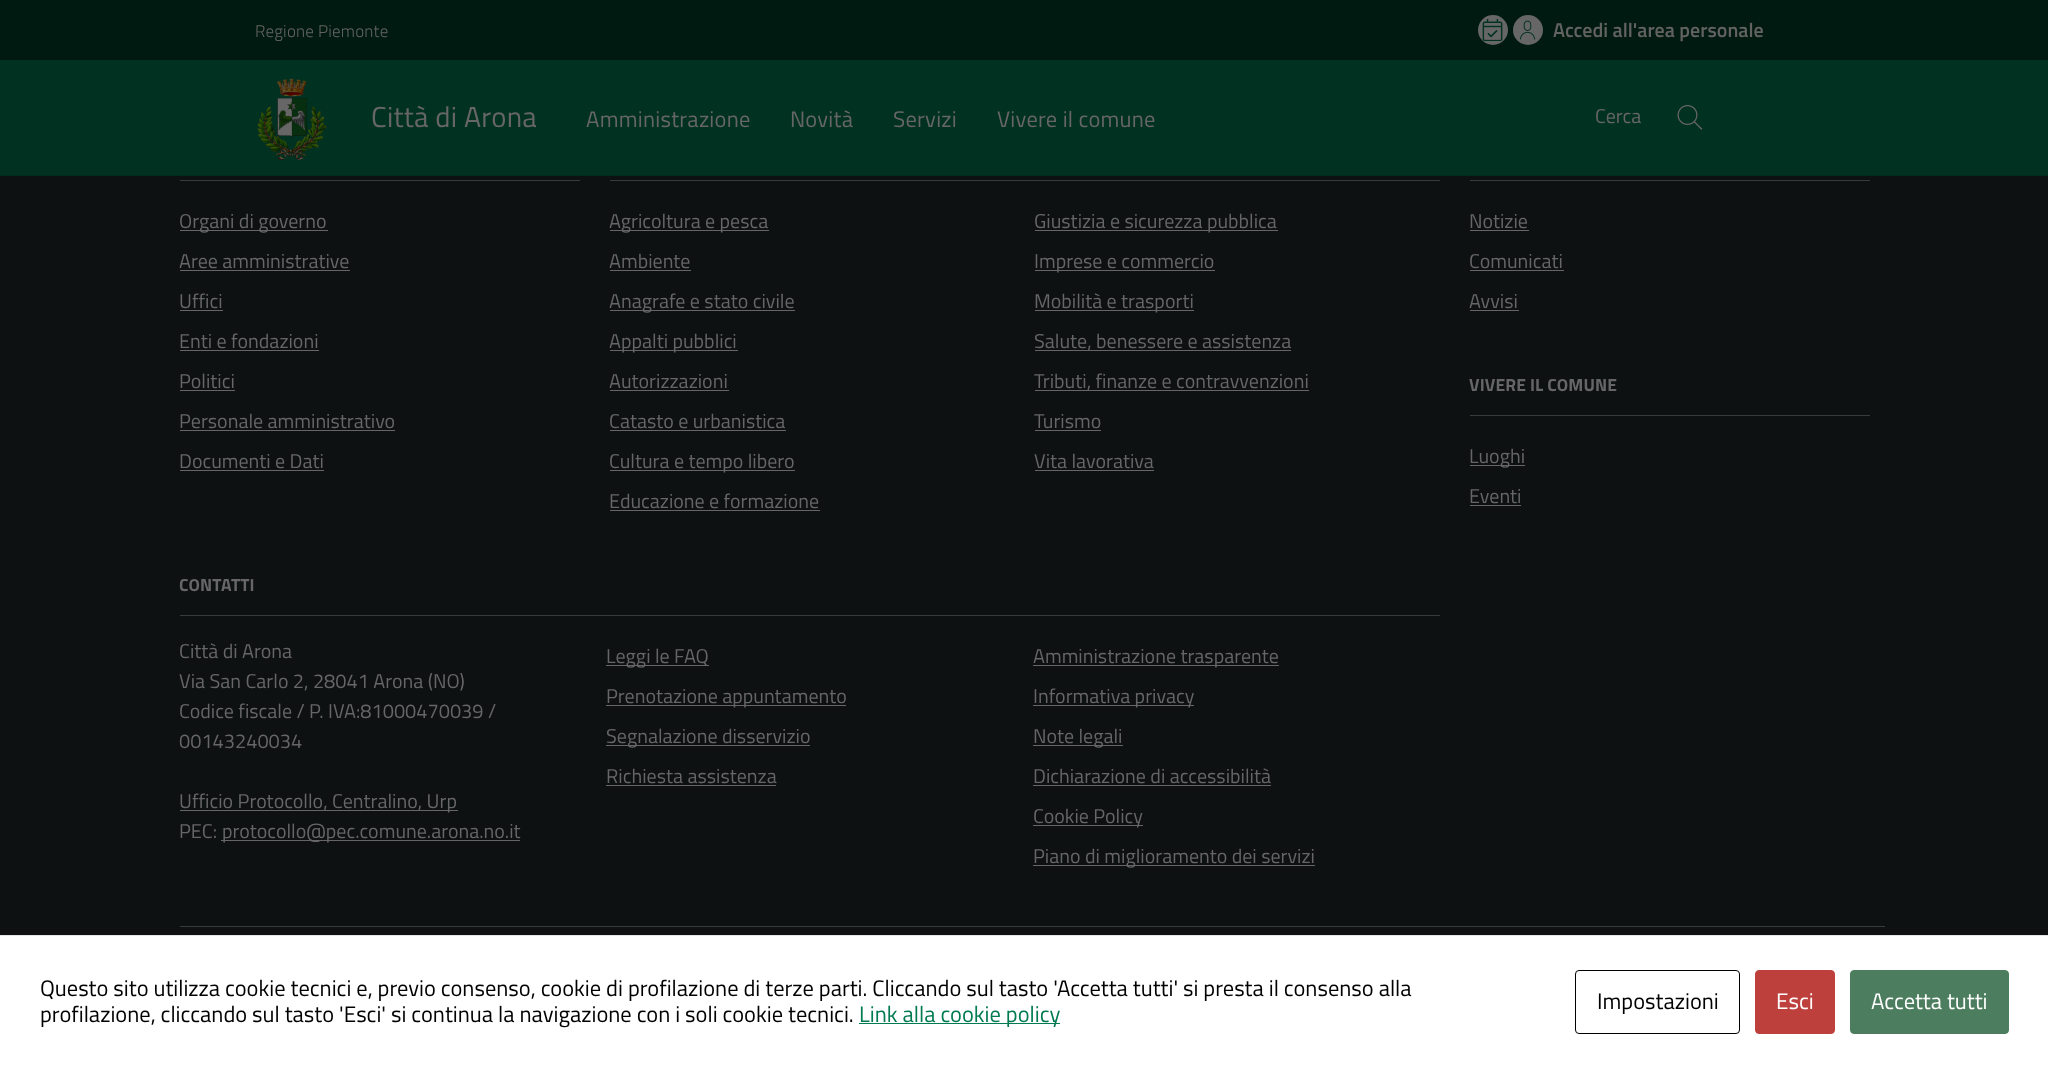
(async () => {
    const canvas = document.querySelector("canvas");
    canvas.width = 2048;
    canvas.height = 1067;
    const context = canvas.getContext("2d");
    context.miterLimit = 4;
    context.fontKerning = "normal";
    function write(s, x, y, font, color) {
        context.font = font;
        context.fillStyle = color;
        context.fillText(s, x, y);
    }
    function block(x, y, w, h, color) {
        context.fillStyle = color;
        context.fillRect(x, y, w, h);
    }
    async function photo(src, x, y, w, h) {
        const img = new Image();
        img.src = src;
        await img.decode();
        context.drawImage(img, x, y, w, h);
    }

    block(0, 0, 2048, 1067, "rgb(13, 17, 18)");
    block(0, 0, 2048, 60, "rgb(0, 26, 17)");
    context.letterSpacing = "0.2px";
    write("Regione Piemonte", 255, 37, "300 17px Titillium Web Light", "rgb(98, 98, 96)");
    context.fillStyle = "rgb(102, 102, 102)";
    context.beginPath();
    context.arc(1493, 30, 15, 0, Math.PI * 2);
    context.fill();
    await photo("media/1.png", 1482, 19, 21, 22);
    context.beginPath();
    context.arc(1528, 30, 15, 0, Math.PI * 2);
    context.fill();
    await photo("media/2.png", 1520, 20, 15, 20);
    context.letterSpacing = "0px";
    write("Accedi all'area personale", 1553, 37, "600 20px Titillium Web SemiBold", "rgb(98, 98, 96)");
    block(0, 60, 2048, 115, "rgb(0, 49, 33)");
    block(0, 175, 2048, 1, "rgb(0, 44, 30)");
    await photo("media/3.png", 257, 78, 70, 82);
    context.letterSpacing = "0.25px";
    write("Città di Arona", 371, 127, "28.75px Titillium Web", "rgb(102, 102, 102)");
    write("Amministrazione", 586, 127, "22.5px Titillium Web", "rgb(102, 102, 102)");
    write("Novità", 790, 127, "22.5px Titillium Web", "rgb(102, 102, 102)");
    write("Servizi", 893, 127, "22.5px Titillium Web", "rgb(102, 102, 102)");
    write("Vivere il comune", 997, 127, "22.5px Titillium Web", "rgb(102, 102, 102)");
    context.letterSpacing = "0px";
    write("Cerca", 1595, 123, "20px Titillium Web", "rgb(102, 102, 102)");
    await photo("media/4.png", 1677, 105, 26, 25);
    block(180, 180, 400, 1, "rgb(58, 60, 60)");
    block(180, 230, 148, 1, "rgb(102, 102, 102)");
    write("Organi di governo", 179, 228, "20px Titillium Web", "rgb(102, 102, 102)");
    write("Aree amministrative", 179, 268, "20px Titillium Web", "rgb(102, 102, 102)");
    block(180, 270, 170, 1, "rgb(102, 102, 102)");
    write("Uffici", 179, 308, "20px Titillium Web", "rgb(102, 102, 102)");
    block(180, 310, 43, 1, "rgb(102, 102, 102)");
    write("Enti e fondazioni", 179, 348, "20px Titillium Web", "rgb(102, 102, 102)");
    block(180, 350, 139, 1, "rgb(102, 102, 102)");
    write("Politici", 179, 388, "20px Titillium Web", "rgb(102, 102, 102)");
    block(180, 390, 55, 1, "rgb(102, 102, 102)");
    write("Personale amministrativo", 179, 428, "20px Titillium Web", "rgb(102, 102, 102)");
    block(180, 430, 215, 1, "rgb(102, 102, 102)");
    write("Documenti e Dati", 179, 468, "20px Titillium Web", "rgb(102, 102, 102)");
    block(180, 470, 144, 1, "rgb(102, 102, 102)");
    block(610, 180, 830, 1, "rgb(58, 60, 60)");
    block(610, 230, 159, 1, "rgb(102, 102, 102)");
    write("Agricoltura e pesca", 609, 228, "20px Titillium Web", "rgb(102, 102, 102)");
    write("Ambiente", 609, 268, "20px Titillium Web", "rgb(102, 102, 102)");
    block(610, 270, 81, 1, "rgb(102, 102, 102)");
    block(610, 310, 185, 1, "rgb(102, 102, 102)");
    write("Anagrafe e stato civile", 609, 308, "20px Titillium Web", "rgb(102, 102, 102)");
    block(610, 350, 128, 1, "rgb(102, 102, 102)");
    write("Appalti pubblici", 609, 348, "20px Titillium Web", "rgb(102, 102, 102)");
    write("Autorizzazioni", 609, 388, "20px Titillium Web", "rgb(102, 102, 102)");
    block(610, 390, 119, 1, "rgb(102, 102, 102)");
    write("Catasto e urbanistica", 609, 428, "20px Titillium Web", "rgb(102, 102, 102)");
    block(610, 430, 176, 1, "rgb(102, 102, 102)");
    block(610, 470, 185, 1, "rgb(102, 102, 102)");
    write("Cultura e tempo libero", 609, 468, "20px Titillium Web", "rgb(102, 102, 102)");
    write("Educazione e formazione", 609, 508, "20px Titillium Web", "rgb(102, 102, 102)");
    block(610, 510, 210, 1, "rgb(102, 102, 102)");
    block(1035, 230, 243, 1, "rgb(102, 102, 102)");
    write("Giustizia e sicurezza pubblica", 1034, 228, "20px Titillium Web", "rgb(102, 102, 102)");
    block(1035, 270, 180, 1, "rgb(102, 102, 102)");
    write("Imprese e commercio", 1034, 268, "20px Titillium Web", "rgb(102, 102, 102)");
    block(1035, 310, 159, 1, "rgb(102, 102, 102)");
    write("Mobilità e trasporti", 1034, 308, "20px Titillium Web", "rgb(102, 102, 102)");
    block(1035, 350, 256, 1, "rgb(102, 102, 102)");
    write("Salute, benessere e assistenza", 1034, 348, "20px Titillium Web", "rgb(102, 102, 102)");
    block(1035, 390, 274, 1, "rgb(102, 102, 102)");
    write("Tributi, finanze e contravvenzioni", 1034, 388, "20px Titillium Web", "rgb(102, 102, 102)");
    write("Turismo", 1034, 428, "20px Titillium Web", "rgb(102, 102, 102)");
    block(1035, 430, 66, 1, "rgb(102, 102, 102)");
    write("Vita lavorativa", 1034, 468, "20px Titillium Web", "rgb(102, 102, 102)");
    block(1035, 470, 119, 1, "rgb(102, 102, 102)");
    block(1470, 180, 400, 1, "rgb(58, 60, 60)");
    write("Notizie", 1469, 228, "20px Titillium Web", "rgb(102, 102, 102)");
    block(1470, 230, 59, 1, "rgb(102, 102, 102)");
    write("Comunicati", 1469, 268, "20px Titillium Web", "rgb(102, 102, 102)");
    block(1470, 270, 94, 1, "rgb(102, 102, 102)");
    write("Avvisi", 1469, 308, "20px Titillium Web", "rgb(102, 102, 102)");
    block(1470, 310, 49, 1, "rgb(102, 102, 102)");
    block(1470, 415, 400, 1, "rgb(58, 60, 60)");
    context.letterSpacing = "0.1px";
    write("VIVERE IL COMUNE", 1469, 391, "bold 17.5px Titillium Web", "rgb(102, 102, 102)");
    block(1470, 465, 55, 1, "rgb(102, 102, 102)");
    context.letterSpacing = "0px";
    write("Luoghi", 1469, 463, "20px Titillium Web", "rgb(102, 102, 102)");
    write("Eventi", 1469, 503, "20px Titillium Web", "rgb(102, 102, 102)");
    block(1470, 505, 51, 1, "rgb(102, 102, 102)");
    block(180, 615, 1260, 1, "rgb(58, 60, 60)");
    context.letterSpacing = "0.1px";
    write("CONTATTI", 179, 591, "bold 17.5px Titillium Web", "rgb(102, 102, 102)");
    context.letterSpacing = "0px";
    write("Città di Arona", 179, 658, "20px Titillium Web", "rgb(102, 102, 102)");
    write("Via San Carlo 2, 28041 Arona (NO)", 179, 688, "20px Titillium Web", "rgb(102, 102, 102)");
    write("Codice fiscale / P. IVA:81000470039 /", 179, 718, "20px Titillium Web", "rgb(102, 102, 102)");
    write("00143240034", 179, 748, "20px Titillium Web", "rgb(102, 102, 102)");
    block(180, 810, 278, 1, "rgb(102, 102, 102)");
    write("Ufficio Protocollo, Centralino, Urp", 179, 808, "20px Titillium Web", "rgb(102, 102, 102)");
    write("PEC:", 179, 838, "20px Titillium Web", "rgb(102, 102, 102)");
    block(221, 840, 299, 1, "rgb(102, 102, 102)");
    write("protocollo@pec.comune.arona.no.it", 222, 838, "20px Titillium Web", "rgb(102, 102, 102)");
    block(606, 665, 103, 1, "rgb(102, 102, 102)");
    write("Leggi le FAQ", 606, 663, "20px Titillium Web", "rgb(102, 102, 102)");
    block(606, 705, 240, 1, "rgb(102, 102, 102)");
    write("Prenotazione appuntamento", 606, 703, "20px Titillium Web", "rgb(102, 102, 102)");
    block(606, 745, 204, 1, "rgb(102, 102, 102)");
    write("Segnalazione disservizio", 606, 743, "20px Titillium Web", "rgb(102, 102, 102)");
    write("Richiesta assistenza", 606, 783, "20px Titillium Web", "rgb(102, 102, 102)");
    block(606, 785, 170, 1, "rgb(102, 102, 102)");
    block(1033, 665, 246, 1, "rgb(102, 102, 102)");
    write("Amministrazione trasparente", 1033, 663, "20px Titillium Web", "rgb(102, 102, 102)");
    block(1033, 705, 161, 1, "rgb(102, 102, 102)");
    write("Informativa privacy", 1033, 703, "20px Titillium Web", "rgb(102, 102, 102)");
    block(1033, 745, 90, 1, "rgb(102, 102, 102)");
    write("Note legali", 1033, 743, "20px Titillium Web", "rgb(102, 102, 102)");
    write("Dichiarazione di accessibilità", 1033, 783, "20px Titillium Web", "rgb(102, 102, 102)");
    block(1033, 785, 238, 1, "rgb(102, 102, 102)");
    block(1033, 825, 110, 1, "rgb(102, 102, 102)");
    write("Cookie Policy", 1033, 823, "20px Titillium Web", "rgb(102, 102, 102)");
    block(1033, 865, 282, 1, "rgb(102, 102, 102)");
    write("Piano di miglioramento dei servizi", 1033, 863, "20px Titillium Web", "rgb(102, 102, 102)");
    block(180, 926, 1705, 1, "rgb(58, 60, 60)");
    block(0, 936, 2048, 131, "rgb(255, 255, 255)");
    block(0, 935, 2048, 1, "rgb(230, 230, 230)");
    write("Questo sito utilizza cookie tecnici e, previo consenso, cookie di profilazione di terze parti. Cliccando sul tasto 'Accetta tutti' si presta il consenso alla", 40, 996, "22.5px Titillium Web", "rgb(0, 0, 0)");
    write("profilazione, cliccando sul tasto 'Esci' si continua la navigazione con i soli cookie tecnici.", 40, 1022, "22.5px Titillium Web", "rgb(0, 0, 0)");
    block(859, 1023, 201, 1, "rgb(0, 122, 82)");
    write("Link alla cookie policy", 859, 1022, "22.5px Titillium Web", "rgb(0, 122, 82)");
    context.beginPath();
    context.roundRect(1575.5, 970.5, 164, 63, 3.5);
    context.strokeStyle = "rgb(0, 0, 0)";
    context.stroke();
    write("Impostazioni", 1597, 1009, "22.5px Titillium Web", "rgb(0, 0, 0)");
    context.fillStyle = "rgb(189, 64, 60)";
    context.beginPath();
    context.roundRect(1755.5, 970.5, 79, 63, 3.5);
    context.fill();
    context.strokeStyle = "rgb(189, 64, 60)";
    context.stroke();
    write("Esci", 1776, 1009, "22.5px Titillium Web", "rgb(255, 255, 255)");
    context.fillStyle = "rgb(75, 125, 94)";
    context.beginPath();
    context.roundRect(1850.5, 970.5, 158, 63, 3.5);
    context.fill();
    context.strokeStyle = "rgb(75, 125, 94)";
    context.stroke();
    write("Accetta tutti", 1871, 1009, "22.5px Titillium Web", "rgb(255, 255, 255)");
})();
